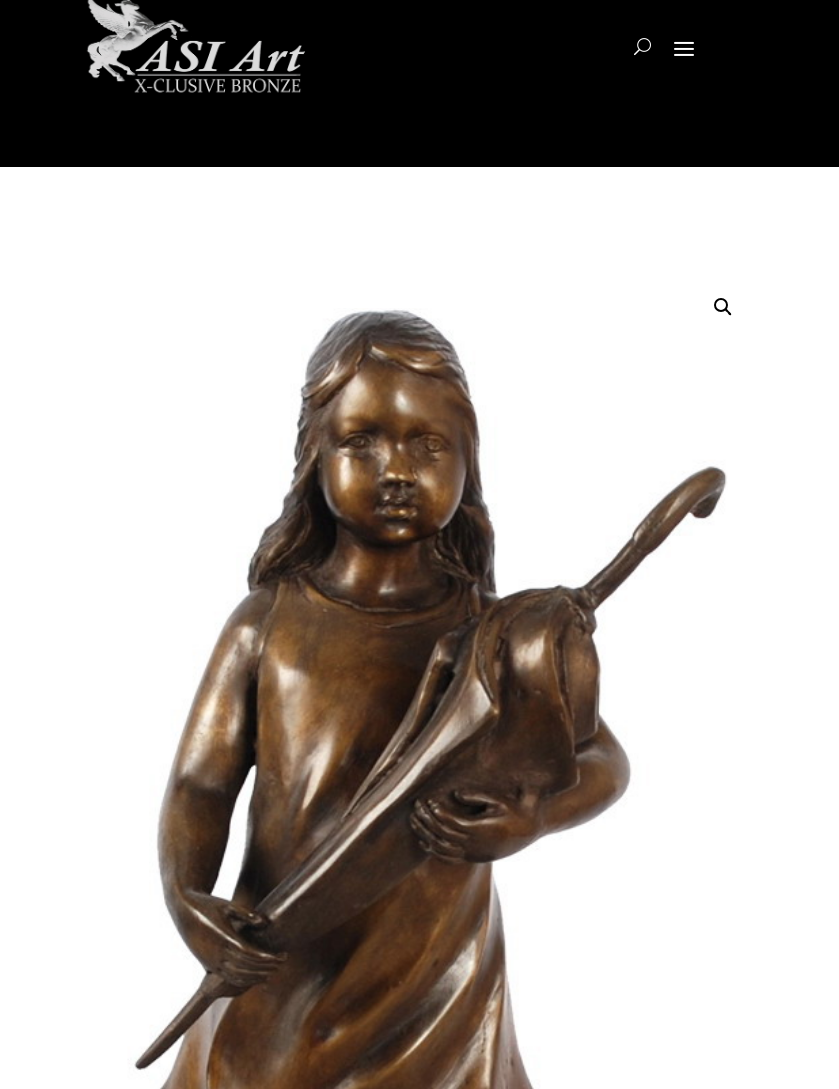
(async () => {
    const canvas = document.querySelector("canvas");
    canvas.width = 839;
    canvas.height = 1089;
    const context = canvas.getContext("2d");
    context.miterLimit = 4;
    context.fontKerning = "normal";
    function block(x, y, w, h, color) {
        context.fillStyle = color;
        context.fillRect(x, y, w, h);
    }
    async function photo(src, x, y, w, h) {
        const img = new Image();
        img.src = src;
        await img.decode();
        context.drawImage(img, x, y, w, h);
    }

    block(0, 0, 839, 1089, "rgb(255, 255, 255)");
    block(0, 0, 839, 167, "rgb(0, 0, 0)");
    await photo("media/1.png", 127, 308, 601, 781);
    context.beginPath();
    context.arc(721, 305, 6, 0, Math.PI * 2);
    context.strokeStyle = "rgb(0, 0, 0)";
    context.lineWidth = 2;
    context.stroke();
    context.beginPath();
    context.moveTo(725.5, 309);
    context.bezierCurveTo(726.5, 308, 728, 310.5, 729, 311.5);
    context.bezierCurveTo(729.5, 312, 732, 313.5, 731, 315);
    context.bezierCurveTo(729.5, 316, 728, 313.5, 727.5, 312.5);
    context.bezierCurveTo(727, 312, 724, 310.5, 725.5, 309);
    context.closePath();
    context.fill();
    await photo("media/2.png", 86, 0, 220, 93);
    await photo("media/3.png", 634, 38, 17, 18);
    await photo("media/4.png", 674, 41, 20, 15);
})();
